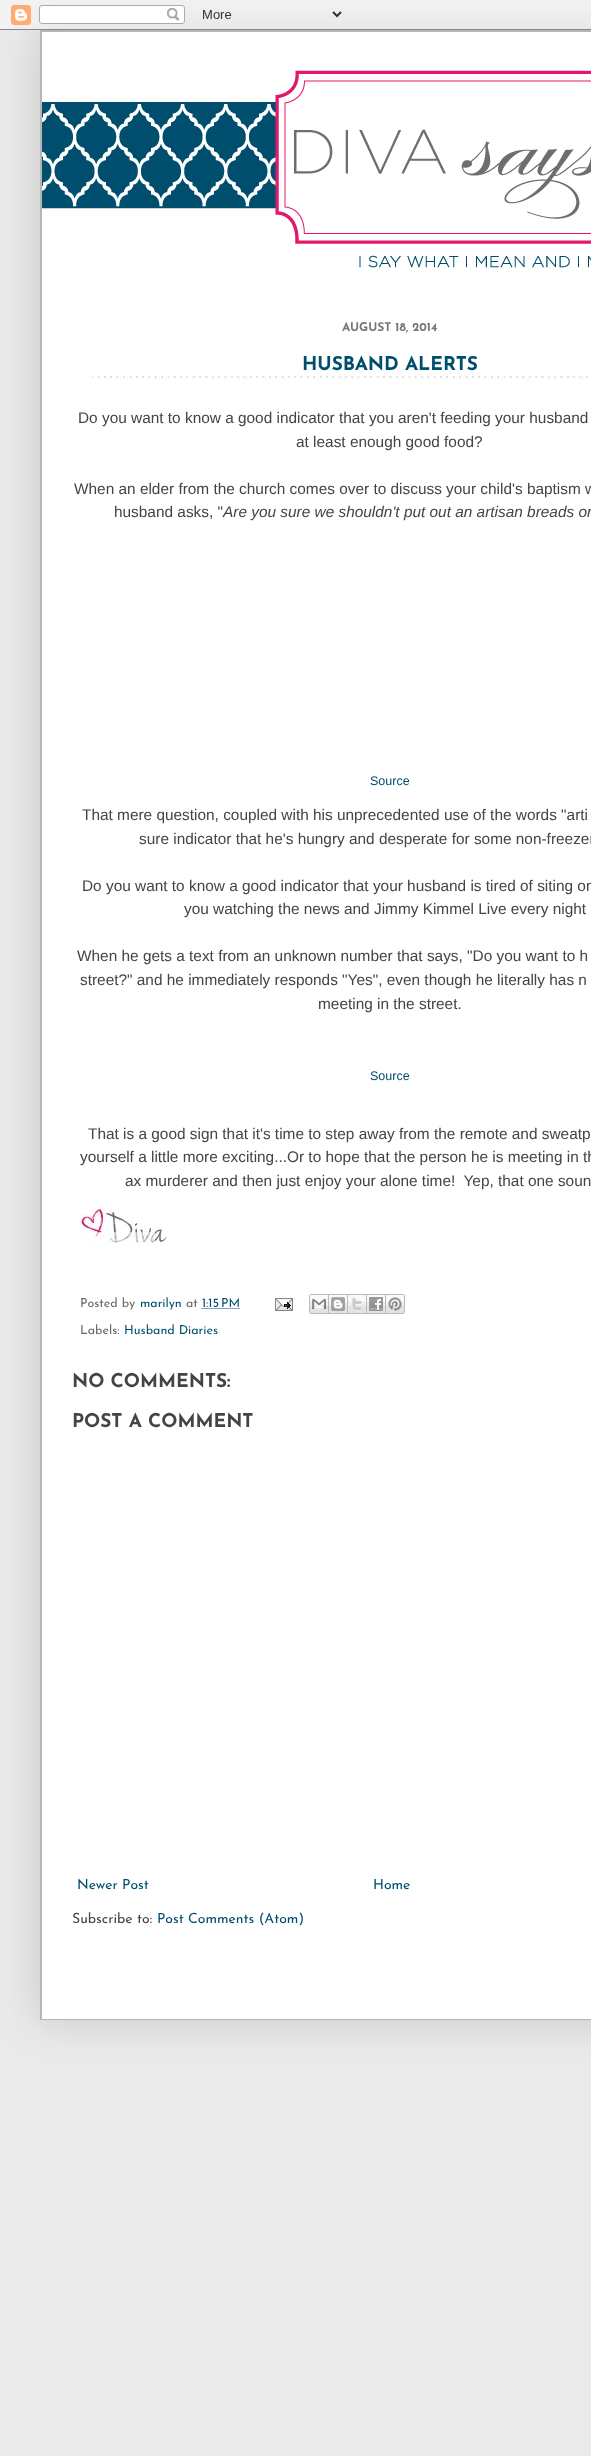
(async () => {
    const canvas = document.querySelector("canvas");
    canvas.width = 591;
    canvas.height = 2456;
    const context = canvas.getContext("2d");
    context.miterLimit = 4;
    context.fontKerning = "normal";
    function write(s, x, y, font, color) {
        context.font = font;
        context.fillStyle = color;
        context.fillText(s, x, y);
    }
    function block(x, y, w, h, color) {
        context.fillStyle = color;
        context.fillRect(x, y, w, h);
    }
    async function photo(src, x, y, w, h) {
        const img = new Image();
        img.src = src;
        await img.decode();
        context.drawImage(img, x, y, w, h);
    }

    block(0, 0, 591, 2456, "rgb(234, 234, 234)");
    context.fillStyle = "rgba(0, 0, 0, 0.15)";
    context.filter = "blur(20px)";
    context.beginPath();
    context.rect(40, 30, 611, 1990);
    context.fill();
    context.filter = "none";
    await photo("media/1.png", 0, 0, 591, 30);
    context.strokeStyle = "rgb(181, 181, 181)";
    context.lineWidth = 2;
    context.strokeRect(41, 31, 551, 1988);
    block(42, 32, 549, 1987, "rgb(255, 255, 255)");
    await photo("media/2.png", 42, 70, 549, 199);
    write("AUGUST 18, 2014", 342, 331, "bold 12px Josefin Sans", "rgb(119, 119, 119)");
    await photo("media/3.png", 92, 376, 496, 4);
    write("HUSBAND ALERTS", 302, 370, "bold 19px Josefin Sans", "rgb(0, 78, 110)");
    write("Do you want to know a good indicator that you aren't feeding your husband", 78, 423, "15.4px Liberation Sans", "rgb(68, 68, 68)");
    write("at least enough good food?", 296, 447, "15.4px Liberation Sans", "rgb(68, 68, 68)");
    write("When an elder from the church comes over to discuss your child's baptism w", 74, 494, "15.4px Liberation Sans", "rgb(68, 68, 68)");
    write("husband asks, \"", 114, 517, "15.4px Liberation Sans", "rgb(68, 68, 68)");
    write("Are you sure we shouldn't put out an artisan breads or", 223, 517, "italic 15.4px Liberation Sans", "rgb(68, 68, 68)");
    write("Source", 370, 785, "12.5px Liberation Sans", "rgb(0, 78, 110)");
    write("That mere question, coupled with his unprecedented use of the words \"arti", 82, 820, "15.4px Liberation Sans", "rgb(68, 68, 68)");
    write("sure indicator that he's hungry and desperate for some non-freezer", 139, 844, "15.4px Liberation Sans", "rgb(68, 68, 68)");
    write("Do you want to know a good indicator that your husband is tired of siting on", 82, 891, "15.4px Liberation Sans", "rgb(68, 68, 68)");
    write("you watching the news and Jimmy Kimmel Live every night", 184, 914, "15.4px Liberation Sans", "rgb(68, 68, 68)");
    write("When he gets a text from an unknown number that says, \"Do you want to h", 77, 961, "15.4px Liberation Sans", "rgb(68, 68, 68)");
    write("street?\" and he immediately responds \"Yes\", even though he literally has n", 80, 985, "15.4px Liberation Sans", "rgb(68, 68, 68)");
    write("meeting in the street.", 318, 1009, "15.4px Liberation Sans", "rgb(68, 68, 68)");
    write("Source", 370, 1080, "12.5px Liberation Sans", "rgb(0, 78, 110)");
    write("That is a good sign that it's time to step away from the remote and sweatp", 88, 1139, "15.4px Liberation Sans", "rgb(68, 68, 68)");
    write("yourself a little more exciting...Or to hope that the person he is meeting in th", 80, 1162, "15.4px Liberation Sans", "rgb(68, 68, 68)");
    write("ax murderer and then just enjoy your alone time!  Yep, that one soun", 125, 1186, "15.4px Liberation Sans", "rgb(68, 68, 68)");
    await photo("media/4.png", 79, 1206, 89, 40);
    write("Posted by", 80, 1307, "12.5px Josefin Sans", "rgb(102, 102, 102)");
    write("marilyn", 140, 1307, "12.5px Josefin Sans", "rgb(0, 78, 110)");
    write("at", 186, 1307, "12.5px Josefin Sans", "rgb(102, 102, 102)");
    write("1:15 PM", 202, 1307, "12.5px Josefin Sans", "rgb(0, 78, 110)");
    context.beginPath();
    context.moveTo(201.5, 1308.5);
    context.lineTo(240, 1308.5);
    context.strokeStyle = "rgb(0, 78, 110)";
    context.lineWidth = 1;
    context.setLineDash([1, 1]);
    context.stroke();
    await photo("media/5.png", 275, 1298, 18, 13);
    await photo("media/6.png", 309, 1294, 20, 20);
    await photo("media/7.png", 329, 1294, 19, 20);
    await photo("media/8.png", 348, 1294, 19, 20);
    await photo("media/9.png", 367, 1294, 19, 20);
    await photo("media/10.png", 386, 1294, 19, 20);
    write("Labels:", 80, 1334, "12.5px Josefin Sans", "rgb(102, 102, 102)");
    write("Husband Diaries", 124, 1334, "12.5px Josefin Sans", "rgb(0, 78, 110)");
    write("NO COMMENTS:", 72, 1387, "bold 19px Josefin Sans", "rgb(68, 68, 68)");
    write("POST A COMMENT", 72, 1427, "bold 19px Josefin Sans", "rgb(68, 68, 68)");
    write("Newer Post", 77, 1889, "14px Josefin Sans", "rgb(0, 78, 110)");
    write("Home", 373, 1889, "14px Josefin Sans", "rgb(0, 78, 110)");
    write("Subscribe to:", 72, 1923, "14px Josefin Sans", "rgb(68, 68, 68)");
    write("Post Comments (Atom)", 157, 1923, "14px Josefin Sans", "rgb(0, 78, 110)");
})();
